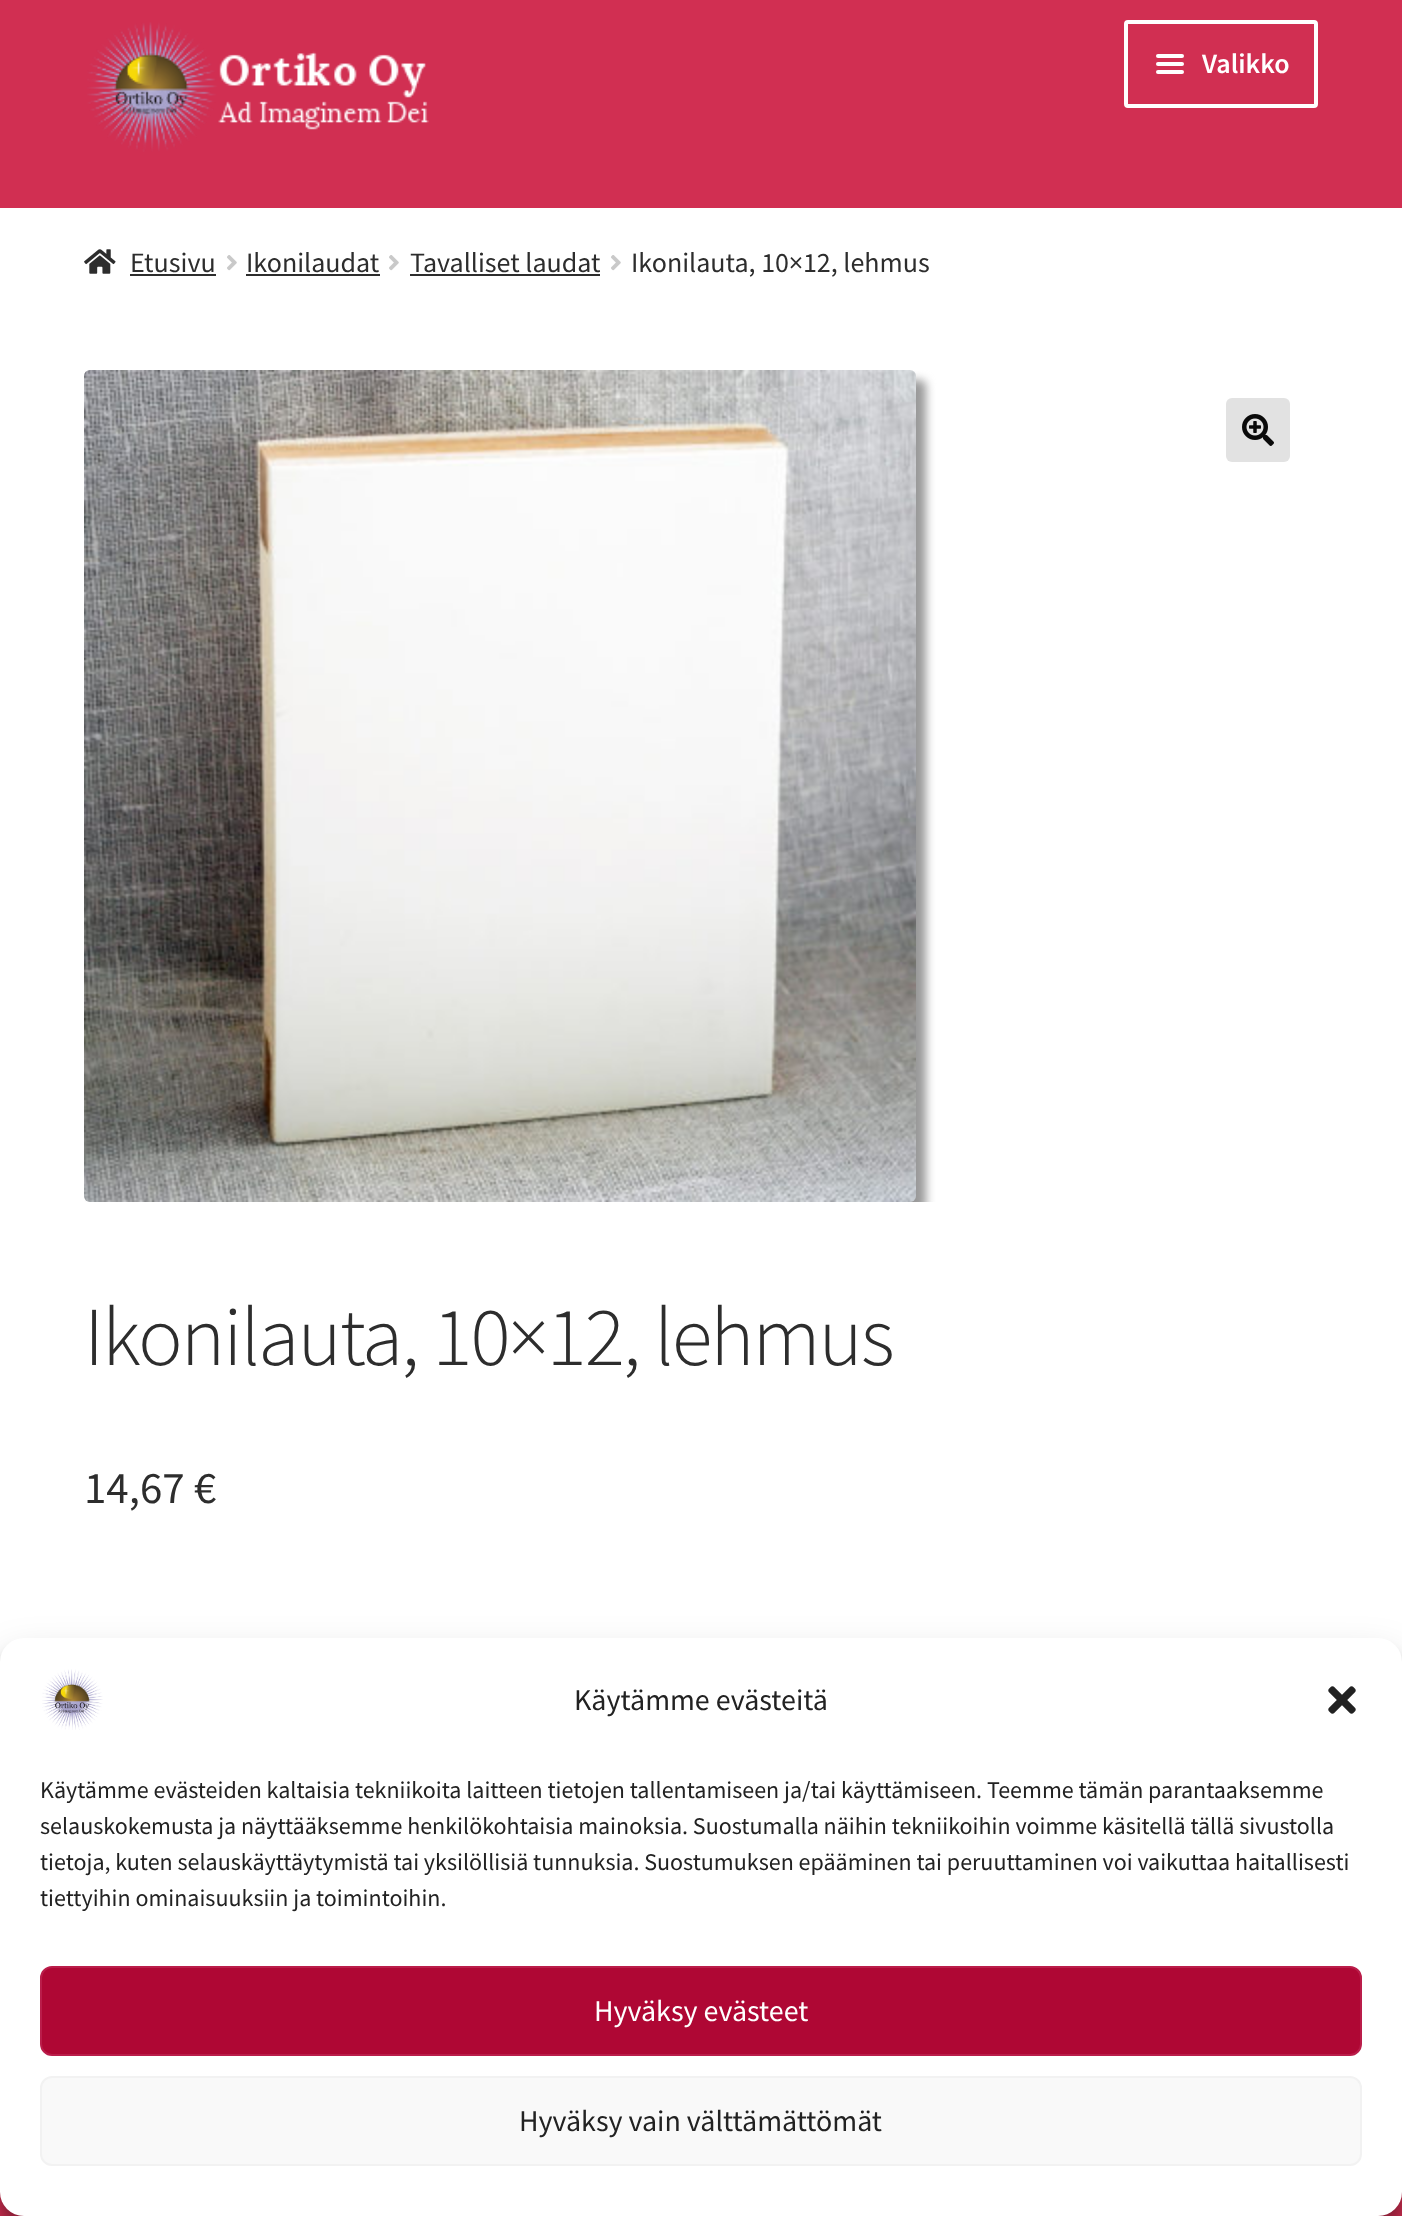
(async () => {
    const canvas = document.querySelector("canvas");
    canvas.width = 1402;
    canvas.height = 2216;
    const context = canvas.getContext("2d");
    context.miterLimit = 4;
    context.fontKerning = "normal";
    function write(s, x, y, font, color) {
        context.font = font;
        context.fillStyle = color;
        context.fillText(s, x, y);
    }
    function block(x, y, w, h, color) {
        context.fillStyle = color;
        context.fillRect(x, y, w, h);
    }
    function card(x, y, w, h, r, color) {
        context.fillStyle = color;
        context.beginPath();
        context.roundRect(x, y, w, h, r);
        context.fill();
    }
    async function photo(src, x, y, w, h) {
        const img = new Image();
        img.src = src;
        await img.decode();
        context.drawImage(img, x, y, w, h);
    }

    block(0, 0, 1402, 2216, "rgb(255, 255, 255)");
    block(0, 0, 1402, 208, "rgb(209, 47, 82)");
    await photo("media/1.png", 87, 22, 342, 130);
    context.beginPath();
    context.roundRect(1126, 22, 190, 84, 2);
    context.strokeStyle = "rgb(255, 255, 255)";
    context.lineWidth = 4;
    context.stroke();
    card(1156, 54, 28, 4, 2, "rgb(255, 255, 255)");
    card(1156, 62, 28, 4, 2, "rgb(255, 255, 255)");
    write("Valikko", 1202, 73, "600 28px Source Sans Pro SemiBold", "rgb(255, 255, 255)");
    card(1156, 70, 28, 4, 2, "rgb(255, 255, 255)");
    await photo("media/2.png", 84, 249, 32, 25);
    write("Etusivu", 130, 272, "28px Source Sans Pro", "rgb(45, 45, 45)");
    block(130, 274, 86, 2, "rgb(45, 45, 45)");
    await photo("media/3.png", 227, 255, 10, 16);
    write("Ikonilaudat", 246, 272, "28px Source Sans Pro", "rgb(45, 45, 45)");
    block(246, 274, 134, 2, "rgb(45, 45, 45)");
    await photo("media/3.png", 389, 255, 10, 16);
    write("Tavalliset laudat", 410, 272, "28px Source Sans Pro", "rgb(45, 45, 45)");
    block(410, 274, 190, 2, "rgb(45, 45, 45)");
    await photo("media/3.png", 611, 255, 10, 16);
    write("Ikonilauta, 10×12, lehmus", 631, 272, "28px Source Sans Pro", "rgb(45, 45, 45)");
    context.save();
    context.beginPath();
    context.rect(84, 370, 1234, 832);
    context.clip();
    context.fillStyle = "rgb(153, 153, 153)";
    context.filter = "blur(5px)";
    context.beginPath();
    context.roundRect(94, 380, 832, 832, 6);
    context.fill();
    context.filter = "none";
    context.restore();
    await photo("media/4.png", 84, 370, 832, 832);
    card(1226, 398, 64, 64, 6, "rgb(226, 226, 226)");
    await photo("media/5.png", 1242, 414, 32, 32);
    context.letterSpacing = "-2px";
    write("Ikonilauta, 10×12, lehmus", 84, 1365, "300 83.75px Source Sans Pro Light", "rgb(45, 45, 45)");
    context.letterSpacing = "0px";
    write("14,67 €", 84, 1503, "45px Source Sans Pro", "rgb(45, 45, 45)");
    block(0, 2192, 24, 24, "rgb(209, 47, 82)");
    block(1378, 2192, 24, 24, "rgb(209, 47, 82)");
    context.fillStyle = "rgba(0, 0, 0, 0.23)";
    context.filter = "blur(6px)";
    context.beginPath();
    context.roundRect(0, 1650, 1402, 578, 24);
    context.fill();
    context.filter = "none";
    context.fillStyle = "rgba(0, 0, 0, 0.19)";
    context.filter = "blur(20px)";
    context.beginPath();
    context.roundRect(0, 1658, 1402, 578, 24);
    context.fill();
    context.filter = "none";
    card(0, 1638, 1402, 578, 24, "rgb(255, 255, 255)");
    await photo("media/6.png", 42, 1669, 61, 61);
    write("Käytämme evästeitä", 574, 1710, "30px Source Sans Pro", "rgb(34, 34, 34)");
    await photo("media/7.png", 1328, 1686, 28, 28);
    write("Käytämme evästeiden kaltaisia tekniikoita laitteen tietojen tallentamiseen ja/tai käyttämiseen. Teemme tämän parantaaksemme", 40, 1798, "24px Source Sans Pro", "rgb(34, 34, 34)");
    write("selauskokemusta ja näyttääksemme henkilökohtaisia mainoksia. Suostumalla näihin tekniikoihin voimme käsitellä tällä sivustolla", 40, 1834, "24px Source Sans Pro", "rgb(34, 34, 34)");
    write("tietoja, kuten selauskäyttäytymistä tai yksilöllisiä tunnuksia. Suostumuksen epääminen tai peruuttaminen voi vaikuttaa haitallisesti", 40, 1870, "24px Source Sans Pro", "rgb(34, 34, 34)");
    write("tiettyihin ominaisuuksiin ja toimintoihin.", 40, 1906, "24px Source Sans Pro", "rgb(34, 34, 34)");
    context.fillStyle = "rgb(175, 7, 52)";
    context.beginPath();
    context.roundRect(41, 1967, 1320, 88, 11);
    context.fill();
    context.strokeStyle = "rgb(186, 29, 74)";
    context.lineWidth = 2;
    context.stroke();
    write("Hyväksy evästeet", 594, 2021, "30px Source Sans Pro", "rgb(255, 255, 255)");
    context.fillStyle = "rgb(249, 249, 249)";
    context.beginPath();
    context.roundRect(41, 2077, 1320, 88, 11);
    context.fill();
    context.strokeStyle = "rgb(242, 242, 242)";
    context.stroke();
    write("Hyväksy vain välttämättömät", 519, 2131, "30px Source Sans Pro", "rgb(34, 34, 34)");
})();
